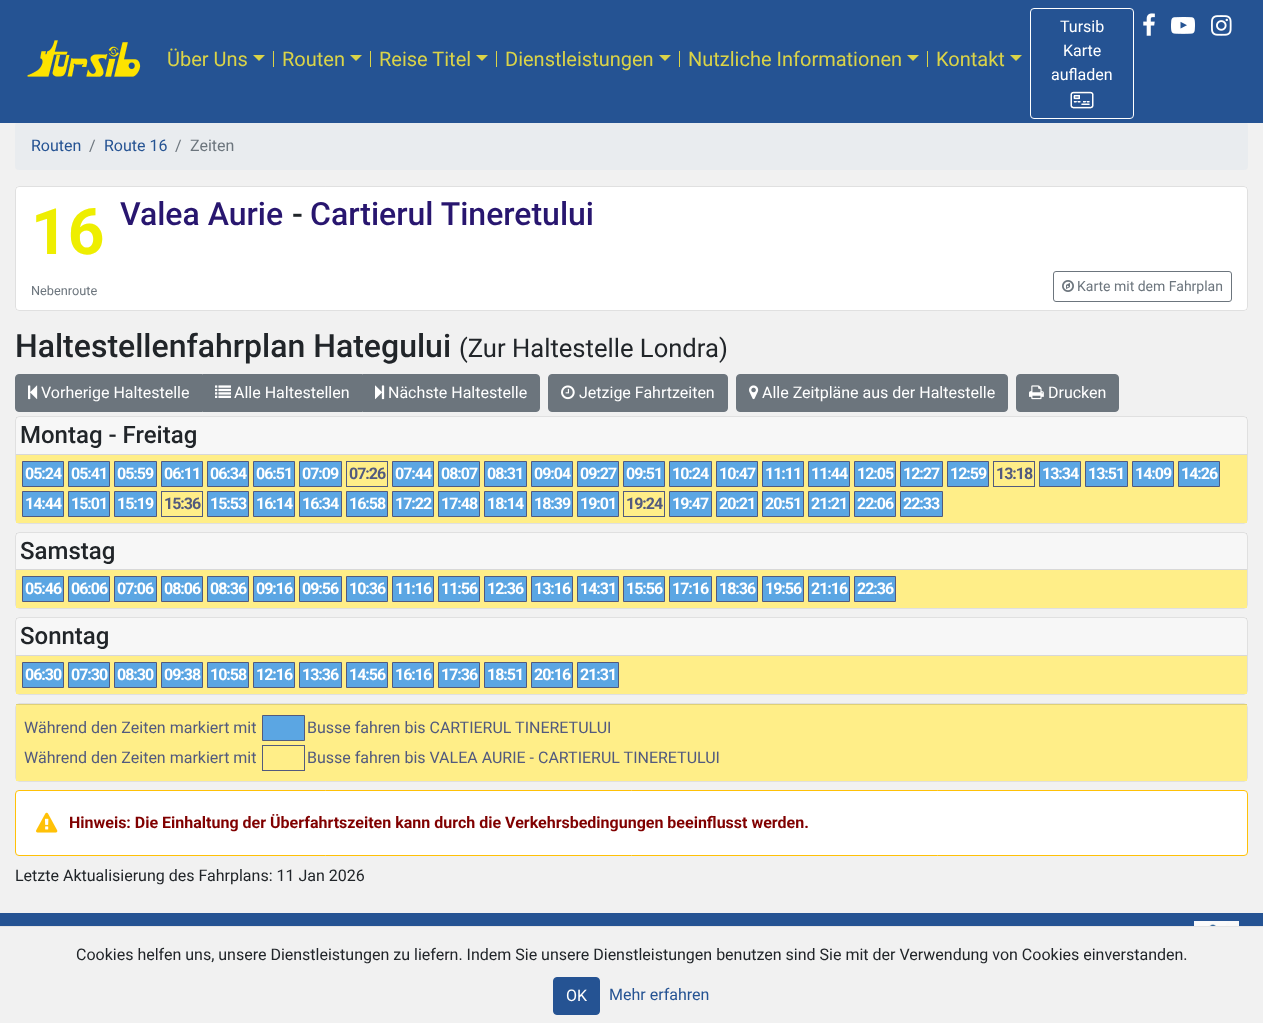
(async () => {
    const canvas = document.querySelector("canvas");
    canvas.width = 1263;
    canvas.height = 1023;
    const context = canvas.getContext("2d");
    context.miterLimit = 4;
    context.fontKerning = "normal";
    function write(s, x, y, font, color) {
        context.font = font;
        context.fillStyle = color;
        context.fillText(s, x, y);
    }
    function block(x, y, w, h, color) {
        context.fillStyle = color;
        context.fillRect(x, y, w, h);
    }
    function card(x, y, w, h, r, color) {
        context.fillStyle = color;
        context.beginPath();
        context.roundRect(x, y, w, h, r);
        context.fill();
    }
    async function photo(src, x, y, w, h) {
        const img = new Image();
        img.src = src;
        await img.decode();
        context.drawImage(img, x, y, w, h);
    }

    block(0, 0, 1263, 1023, "rgb(241, 241, 241)");
    card(15, 122, 1233, 48, 4, "rgb(233, 236, 239)");
    block(0, 0, 1263, 123, "rgb(37, 83, 147)");
    await photo("media/1.png", 27, 40, 114, 37);
    block(273, 51, 1, 16, "rgb(218, 211, 72)");
    write("Über Uns", 167, 66, "20px Roboto", "rgb(218, 211, 72)");
    context.beginPath();
    context.moveTo(253, 55);
    context.lineTo(265, 55);
    context.lineTo(259, 61);
    context.closePath();
    context.fill();
    block(370, 51, 1, 16, "rgb(218, 211, 72)");
    write("Routen", 282, 66, "20px Roboto", "rgb(218, 211, 72)");
    context.beginPath();
    context.moveTo(350, 55);
    context.lineTo(362, 55);
    context.lineTo(356, 61);
    context.closePath();
    context.fill();
    block(496, 51, 1, 16, "rgb(218, 211, 72)");
    write("Reise Titel", 379, 66, "20px Roboto", "rgb(218, 211, 72)");
    context.beginPath();
    context.moveTo(476, 55);
    context.lineTo(488, 55);
    context.lineTo(482, 61);
    context.closePath();
    context.fill();
    block(679, 51, 1, 16, "rgb(218, 211, 72)");
    write("Dienstleistungen", 505, 66, "20px Roboto", "rgb(218, 211, 72)");
    context.beginPath();
    context.moveTo(659, 55);
    context.lineTo(671, 55);
    context.lineTo(665, 61);
    context.closePath();
    context.fill();
    block(927, 51, 1, 16, "rgb(218, 211, 72)");
    write("Nutzliche Informationen", 688, 66, "20px Roboto", "rgb(218, 211, 72)");
    context.beginPath();
    context.moveTo(907, 55);
    context.lineTo(919, 55);
    context.lineTo(913, 61);
    context.closePath();
    context.fill();
    write("Kontakt", 936, 66, "20px Roboto", "rgb(218, 211, 72)");
    context.beginPath();
    context.moveTo(1010, 55);
    context.lineTo(1022, 55);
    context.lineTo(1016, 61);
    context.closePath();
    context.fill();
    context.beginPath();
    context.roundRect(1030.5, 8.5, 103, 110, 3.5);
    context.strokeStyle = "rgb(255, 255, 255)";
    context.stroke();
    write("Tursib", 1060, 32, "16px Roboto", "rgb(255, 255, 255)");
    write("Karte", 1063, 56, "16px Roboto", "rgb(255, 255, 255)");
    write("aufladen", 1051, 80, "16px Roboto", "rgb(255, 255, 255)");
    await photo("media/2.png", 1070, 91, 24, 18);
    await photo("media/3.png", 1143, 13, 12, 23);
    await photo("media/4.png", 1171, 17, 24, 17);
    await photo("media/5.png", 1211, 15, 21, 21);
    write("Routen", 31, 151, "16px Roboto", "rgb(37, 83, 147)");
    write("/", 89, 151, "16px Roboto", "rgb(108, 117, 125)");
    write("Route 16", 104, 151, "16px Roboto", "rgb(37, 83, 147)");
    write("/", 175, 151, "16px Roboto", "rgb(108, 117, 125)");
    write("Zeiten", 190, 151, "16px Roboto", "rgb(108, 117, 125)");
    card(15, 186, 1233, 125, 4, "rgb(255, 255, 255)");
    context.beginPath();
    context.roundRect(15.5, 186.5, 1232, 124, 3.5);
    context.strokeStyle = "rgba(0, 0, 0, 0.12)";
    context.stroke();
    write("16", 31, 254, "bold 64px Roboto", "rgb(238, 238, 0)");
    write("Valea Aurie", 120, 225, "500 32px Roboto", "rgb(40, 22, 111)");
    write("-", 292, 225, "500 32px Roboto", "rgb(33, 37, 41)");
    write("Cartierul Tineretului", 310, 225, "500 32px Roboto", "rgb(40, 22, 111)");
    write("Nebenroute", 31, 295, "12.75px Roboto", "rgb(108, 117, 125)");
    context.beginPath();
    context.roundRect(1053.5, 271.5, 178, 30, 2.5);
    context.strokeStyle = "rgb(108, 117, 125)";
    context.stroke();
    await photo("media/6.png", 1062, 280, 12, 12);
    write("Karte mit dem Fahrplan", 1077, 291, "14px Roboto", "rgb(108, 117, 125)");
    write("Haltestellenfahrplan Hategului", 15, 357, "500 32px Roboto", "rgb(33, 37, 41)");
    write("(Zur Haltestelle Londra)", 459, 357, "25.6px Roboto", "rgb(33, 37, 41)");
    context.fillStyle = "rgb(108, 117, 125)";
    context.beginPath();
    context.roundRect(15.5, 374.5, 187, 37, [3.5, 0, 0, 3.5]);
    context.fill();
    context.stroke();
    await photo("media/7.png", 28, 385, 10, 15);
    write("Vorherige Haltestelle", 41, 398, "16px Roboto", "rgb(255, 255, 255)");
    block(203, 374, 159, 38, "rgb(108, 117, 125)");
    await photo("media/8.png", 215, 385, 16, 13);
    write("Alle Haltestellen", 234, 398, "16px Roboto", "rgb(255, 255, 255)");
    context.fillStyle = "rgb(108, 117, 125)";
    context.beginPath();
    context.roundRect(362.5, 374.5, 177, 37, [0, 3.5, 3.5, 0]);
    context.fill();
    context.stroke();
    await photo("media/9.png", 375, 385, 10, 15);
    write("Nächste Haltestelle", 388, 398, "16px Roboto", "rgb(255, 255, 255)");
    context.fillStyle = "rgb(108, 117, 125)";
    context.beginPath();
    context.roundRect(548.5, 374.5, 179, 37, 3.5);
    context.fill();
    context.stroke();
    await photo("media/10.png", 561, 385, 14, 15);
    write("Jetzige Fahrtzeiten", 579, 398, "16px Roboto", "rgb(255, 255, 255)");
    context.fillStyle = "rgb(108, 117, 125)";
    context.beginPath();
    context.roundRect(736.5, 374.5, 271, 37, 3.5);
    context.fill();
    context.stroke();
    await photo("media/11.png", 749, 385, 10, 15);
    write("Alle Zeitpläne aus der Haltestelle", 762, 398, "16px Roboto", "rgb(255, 255, 255)");
    context.fillStyle = "rgb(108, 117, 125)";
    context.beginPath();
    context.roundRect(1016.5, 374.5, 102, 37, 3.5);
    context.fill();
    context.stroke();
    await photo("media/12.png", 1029, 385, 15, 15);
    write("Drucken", 1048, 398, "16px Roboto", "rgb(255, 255, 255)");
    card(15, 416, 1233, 108, 4, "rgb(255, 255, 255)");
    context.beginPath();
    context.roundRect(15.5, 416.5, 1232, 107, 3.5);
    context.strokeStyle = "rgba(0, 0, 0, 0.12)";
    context.stroke();
    block(16, 417, 1231, 37, "rgba(0, 0, 0, 0.03)");
    block(16, 454, 1231, 1, "rgb(216, 216, 216)");
    write("Montag - Freitag", 20, 443, "500 24px Roboto", "rgb(33, 37, 41)");
    block(16, 455, 1231, 68, "rgb(255, 238, 136)");
    context.fillStyle = "rgb(91, 166, 227)";
    context.beginPath();
    context.rect(22.5, 461.5, 41, 25);
    context.fill();
    context.strokeStyle = "rgb(82, 90, 126)";
    context.stroke();
    context.letterSpacing = "-1px";
    write("05:24", 25, 479, "bold 16px Roboto", "rgb(255, 255, 255)");
    context.fillStyle = "rgb(91, 166, 227)";
    context.beginPath();
    context.rect(68.5, 461.5, 41, 25);
    context.fill();
    context.stroke();
    write("05:41", 71, 479, "bold 16px Roboto", "rgb(255, 255, 255)");
    context.fillStyle = "rgb(91, 166, 227)";
    context.beginPath();
    context.rect(114.5, 461.5, 42, 25);
    context.fill();
    context.stroke();
    write("05:59", 117, 479, "bold 16px Roboto", "rgb(255, 255, 255)");
    context.fillStyle = "rgb(91, 166, 227)";
    context.beginPath();
    context.rect(161.5, 461.5, 41, 25);
    context.fill();
    context.stroke();
    write("06:11", 164, 479, "bold 16px Roboto", "rgb(255, 255, 255)");
    context.fillStyle = "rgb(91, 166, 227)";
    context.beginPath();
    context.rect(207.5, 461.5, 41, 25);
    context.fill();
    context.stroke();
    write("06:34", 210, 479, "bold 16px Roboto", "rgb(255, 255, 255)");
    context.fillStyle = "rgb(91, 166, 227)";
    context.beginPath();
    context.rect(253.5, 461.5, 41, 25);
    context.fill();
    context.stroke();
    write("06:51", 256, 479, "bold 16px Roboto", "rgb(255, 255, 255)");
    context.fillStyle = "rgb(91, 166, 227)";
    context.beginPath();
    context.rect(299.5, 461.5, 42, 25);
    context.fill();
    context.stroke();
    write("07:09", 302, 479, "bold 16px Roboto", "rgb(255, 255, 255)");
    context.strokeRect(346.5, 461.5, 41, 25);
    write("07:26", 349, 479, "bold 16px Roboto", "rgb(82, 90, 126)");
    context.fillStyle = "rgb(91, 166, 227)";
    context.beginPath();
    context.rect(392.5, 461.5, 41, 25);
    context.fill();
    context.stroke();
    write("07:44", 395, 479, "bold 16px Roboto", "rgb(255, 255, 255)");
    context.fillStyle = "rgb(91, 166, 227)";
    context.beginPath();
    context.rect(438.5, 461.5, 41, 25);
    context.fill();
    context.stroke();
    write("08:07", 441, 479, "bold 16px Roboto", "rgb(255, 255, 255)");
    context.fillStyle = "rgb(91, 166, 227)";
    context.beginPath();
    context.rect(484.5, 461.5, 42, 25);
    context.fill();
    context.stroke();
    write("08:31", 487, 479, "bold 16px Roboto", "rgb(255, 255, 255)");
    context.fillStyle = "rgb(91, 166, 227)";
    context.beginPath();
    context.rect(531.5, 461.5, 41, 25);
    context.fill();
    context.stroke();
    write("09:04", 534, 479, "bold 16px Roboto", "rgb(255, 255, 255)");
    context.fillStyle = "rgb(91, 166, 227)";
    context.beginPath();
    context.rect(577.5, 461.5, 41, 25);
    context.fill();
    context.stroke();
    write("09:27", 580, 479, "bold 16px Roboto", "rgb(255, 255, 255)");
    context.fillStyle = "rgb(91, 166, 227)";
    context.beginPath();
    context.rect(623.5, 461.5, 41, 25);
    context.fill();
    context.stroke();
    write("09:51", 626, 479, "bold 16px Roboto", "rgb(255, 255, 255)");
    context.fillStyle = "rgb(91, 166, 227)";
    context.beginPath();
    context.rect(669.5, 461.5, 42, 25);
    context.fill();
    context.stroke();
    write("10:24", 672, 479, "bold 16px Roboto", "rgb(255, 255, 255)");
    context.fillStyle = "rgb(91, 166, 227)";
    context.beginPath();
    context.rect(716.5, 461.5, 41, 25);
    context.fill();
    context.stroke();
    write("10:47", 719, 479, "bold 16px Roboto", "rgb(255, 255, 255)");
    context.fillStyle = "rgb(91, 166, 227)";
    context.beginPath();
    context.rect(762.5, 461.5, 41, 25);
    context.fill();
    context.stroke();
    write("11:11", 765, 479, "bold 16px Roboto", "rgb(255, 255, 255)");
    context.fillStyle = "rgb(91, 166, 227)";
    context.beginPath();
    context.rect(808.5, 461.5, 41, 25);
    context.fill();
    context.stroke();
    write("11:44", 811, 479, "bold 16px Roboto", "rgb(255, 255, 255)");
    context.fillStyle = "rgb(91, 166, 227)";
    context.beginPath();
    context.rect(854.5, 461.5, 41, 25);
    context.fill();
    context.stroke();
    write("12:05", 857, 479, "bold 16px Roboto", "rgb(255, 255, 255)");
    context.fillStyle = "rgb(91, 166, 227)";
    context.beginPath();
    context.rect(900.5, 461.5, 42, 25);
    context.fill();
    context.stroke();
    write("12:27", 903, 479, "bold 16px Roboto", "rgb(255, 255, 255)");
    context.fillStyle = "rgb(91, 166, 227)";
    context.beginPath();
    context.rect(947.5, 461.5, 41, 25);
    context.fill();
    context.stroke();
    write("12:59", 950, 479, "bold 16px Roboto", "rgb(255, 255, 255)");
    context.strokeRect(993.5, 461.5, 41, 25);
    write("13:18", 996, 479, "bold 16px Roboto", "rgb(82, 90, 126)");
    context.fillStyle = "rgb(91, 166, 227)";
    context.beginPath();
    context.rect(1039.5, 461.5, 41, 25);
    context.fill();
    context.stroke();
    write("13:34", 1042, 479, "bold 16px Roboto", "rgb(255, 255, 255)");
    context.fillStyle = "rgb(91, 166, 227)";
    context.beginPath();
    context.rect(1085.5, 461.5, 42, 25);
    context.fill();
    context.stroke();
    write("13:51", 1088, 479, "bold 16px Roboto", "rgb(255, 255, 255)");
    context.fillStyle = "rgb(91, 166, 227)";
    context.beginPath();
    context.rect(1132.5, 461.5, 41, 25);
    context.fill();
    context.stroke();
    write("14:09", 1135, 479, "bold 16px Roboto", "rgb(255, 255, 255)");
    context.fillStyle = "rgb(91, 166, 227)";
    context.beginPath();
    context.rect(1178.5, 461.5, 41, 25);
    context.fill();
    context.stroke();
    write("14:26", 1181, 479, "bold 16px Roboto", "rgb(255, 255, 255)");
    context.fillStyle = "rgb(91, 166, 227)";
    context.beginPath();
    context.rect(22.5, 491.5, 41, 25);
    context.fill();
    context.stroke();
    write("14:44", 25, 509, "bold 16px Roboto", "rgb(255, 255, 255)");
    context.fillStyle = "rgb(91, 166, 227)";
    context.beginPath();
    context.rect(68.5, 491.5, 41, 25);
    context.fill();
    context.stroke();
    write("15:01", 71, 509, "bold 16px Roboto", "rgb(255, 255, 255)");
    context.fillStyle = "rgb(91, 166, 227)";
    context.beginPath();
    context.rect(114.5, 491.5, 42, 25);
    context.fill();
    context.stroke();
    write("15:19", 117, 509, "bold 16px Roboto", "rgb(255, 255, 255)");
    context.strokeRect(161.5, 491.5, 41, 25);
    write("15:36", 164, 509, "bold 16px Roboto", "rgb(82, 90, 126)");
    context.fillStyle = "rgb(91, 166, 227)";
    context.beginPath();
    context.rect(207.5, 491.5, 41, 25);
    context.fill();
    context.stroke();
    write("15:53", 210, 509, "bold 16px Roboto", "rgb(255, 255, 255)");
    context.fillStyle = "rgb(91, 166, 227)";
    context.beginPath();
    context.rect(253.5, 491.5, 41, 25);
    context.fill();
    context.stroke();
    write("16:14", 256, 509, "bold 16px Roboto", "rgb(255, 255, 255)");
    context.fillStyle = "rgb(91, 166, 227)";
    context.beginPath();
    context.rect(299.5, 491.5, 42, 25);
    context.fill();
    context.stroke();
    write("16:34", 302, 509, "bold 16px Roboto", "rgb(255, 255, 255)");
    context.fillStyle = "rgb(91, 166, 227)";
    context.beginPath();
    context.rect(346.5, 491.5, 41, 25);
    context.fill();
    context.stroke();
    write("16:58", 349, 509, "bold 16px Roboto", "rgb(255, 255, 255)");
    context.fillStyle = "rgb(91, 166, 227)";
    context.beginPath();
    context.rect(392.5, 491.5, 41, 25);
    context.fill();
    context.stroke();
    write("17:22", 395, 509, "bold 16px Roboto", "rgb(255, 255, 255)");
    context.fillStyle = "rgb(91, 166, 227)";
    context.beginPath();
    context.rect(438.5, 491.5, 41, 25);
    context.fill();
    context.stroke();
    write("17:48", 441, 509, "bold 16px Roboto", "rgb(255, 255, 255)");
    context.fillStyle = "rgb(91, 166, 227)";
    context.beginPath();
    context.rect(484.5, 491.5, 42, 25);
    context.fill();
    context.stroke();
    write("18:14", 487, 509, "bold 16px Roboto", "rgb(255, 255, 255)");
    context.fillStyle = "rgb(91, 166, 227)";
    context.beginPath();
    context.rect(531.5, 491.5, 41, 25);
    context.fill();
    context.stroke();
    write("18:39", 534, 509, "bold 16px Roboto", "rgb(255, 255, 255)");
    context.fillStyle = "rgb(91, 166, 227)";
    context.beginPath();
    context.rect(577.5, 491.5, 41, 25);
    context.fill();
    context.stroke();
    write("19:01", 580, 509, "bold 16px Roboto", "rgb(255, 255, 255)");
    context.strokeRect(623.5, 491.5, 41, 25);
    write("19:24", 626, 509, "bold 16px Roboto", "rgb(82, 90, 126)");
    context.fillStyle = "rgb(91, 166, 227)";
    context.beginPath();
    context.rect(669.5, 491.5, 42, 25);
    context.fill();
    context.stroke();
    write("19:47", 672, 509, "bold 16px Roboto", "rgb(255, 255, 255)");
    context.fillStyle = "rgb(91, 166, 227)";
    context.beginPath();
    context.rect(716.5, 491.5, 41, 25);
    context.fill();
    context.stroke();
    write("20:21", 719, 509, "bold 16px Roboto", "rgb(255, 255, 255)");
    context.fillStyle = "rgb(91, 166, 227)";
    context.beginPath();
    context.rect(762.5, 491.5, 41, 25);
    context.fill();
    context.stroke();
    write("20:51", 765, 509, "bold 16px Roboto", "rgb(255, 255, 255)");
    context.fillStyle = "rgb(91, 166, 227)";
    context.beginPath();
    context.rect(808.5, 491.5, 41, 25);
    context.fill();
    context.stroke();
    write("21:21", 811, 509, "bold 16px Roboto", "rgb(255, 255, 255)");
    context.fillStyle = "rgb(91, 166, 227)";
    context.beginPath();
    context.rect(854.5, 491.5, 41, 25);
    context.fill();
    context.stroke();
    write("22:06", 857, 509, "bold 16px Roboto", "rgb(255, 255, 255)");
    context.fillStyle = "rgb(91, 166, 227)";
    context.beginPath();
    context.rect(900.5, 491.5, 42, 25);
    context.fill();
    context.stroke();
    write("22:33", 903, 509, "bold 16px Roboto", "rgb(255, 255, 255)");
    card(15, 532, 1233, 77, 4, "rgb(255, 255, 255)");
    context.beginPath();
    context.roundRect(15.5, 532.5, 1232, 76, 3.5);
    context.strokeStyle = "rgba(0, 0, 0, 0.12)";
    context.stroke();
    block(16, 533, 1231, 36, "rgba(0, 0, 0, 0.03)");
    block(16, 569, 1231, 1, "rgb(216, 216, 216)");
    context.letterSpacing = "0px";
    write("Samstag", 20, 559, "500 24px Roboto", "rgb(33, 37, 41)");
    block(16, 570, 1231, 38, "rgb(255, 238, 136)");
    context.fillStyle = "rgb(91, 166, 227)";
    context.beginPath();
    context.rect(22.5, 576.5, 41, 25);
    context.fill();
    context.strokeStyle = "rgb(82, 90, 126)";
    context.stroke();
    context.letterSpacing = "-1px";
    write("05:46", 25, 594, "bold 16px Roboto", "rgb(255, 255, 255)");
    context.fillStyle = "rgb(91, 166, 227)";
    context.beginPath();
    context.rect(68.5, 576.5, 41, 25);
    context.fill();
    context.stroke();
    write("06:06", 71, 594, "bold 16px Roboto", "rgb(255, 255, 255)");
    context.fillStyle = "rgb(91, 166, 227)";
    context.beginPath();
    context.rect(114.5, 576.5, 42, 25);
    context.fill();
    context.stroke();
    write("07:06", 117, 594, "bold 16px Roboto", "rgb(255, 255, 255)");
    context.fillStyle = "rgb(91, 166, 227)";
    context.beginPath();
    context.rect(161.5, 576.5, 41, 25);
    context.fill();
    context.stroke();
    write("08:06", 164, 594, "bold 16px Roboto", "rgb(255, 255, 255)");
    context.fillStyle = "rgb(91, 166, 227)";
    context.beginPath();
    context.rect(207.5, 576.5, 41, 25);
    context.fill();
    context.stroke();
    write("08:36", 210, 594, "bold 16px Roboto", "rgb(255, 255, 255)");
    context.fillStyle = "rgb(91, 166, 227)";
    context.beginPath();
    context.rect(253.5, 576.5, 41, 25);
    context.fill();
    context.stroke();
    write("09:16", 256, 594, "bold 16px Roboto", "rgb(255, 255, 255)");
    context.fillStyle = "rgb(91, 166, 227)";
    context.beginPath();
    context.rect(299.5, 576.5, 42, 25);
    context.fill();
    context.stroke();
    write("09:56", 302, 594, "bold 16px Roboto", "rgb(255, 255, 255)");
    context.fillStyle = "rgb(91, 166, 227)";
    context.beginPath();
    context.rect(346.5, 576.5, 41, 25);
    context.fill();
    context.stroke();
    write("10:36", 349, 594, "bold 16px Roboto", "rgb(255, 255, 255)");
    context.fillStyle = "rgb(91, 166, 227)";
    context.beginPath();
    context.rect(392.5, 576.5, 41, 25);
    context.fill();
    context.stroke();
    write("11:16", 395, 594, "bold 16px Roboto", "rgb(255, 255, 255)");
    context.fillStyle = "rgb(91, 166, 227)";
    context.beginPath();
    context.rect(438.5, 576.5, 41, 25);
    context.fill();
    context.stroke();
    write("11:56", 441, 594, "bold 16px Roboto", "rgb(255, 255, 255)");
    context.fillStyle = "rgb(91, 166, 227)";
    context.beginPath();
    context.rect(484.5, 576.5, 42, 25);
    context.fill();
    context.stroke();
    write("12:36", 487, 594, "bold 16px Roboto", "rgb(255, 255, 255)");
    context.fillStyle = "rgb(91, 166, 227)";
    context.beginPath();
    context.rect(531.5, 576.5, 41, 25);
    context.fill();
    context.stroke();
    write("13:16", 534, 594, "bold 16px Roboto", "rgb(255, 255, 255)");
    context.fillStyle = "rgb(91, 166, 227)";
    context.beginPath();
    context.rect(577.5, 576.5, 41, 25);
    context.fill();
    context.stroke();
    write("14:31", 580, 594, "bold 16px Roboto", "rgb(255, 255, 255)");
    context.fillStyle = "rgb(91, 166, 227)";
    context.beginPath();
    context.rect(623.5, 576.5, 41, 25);
    context.fill();
    context.stroke();
    write("15:56", 626, 594, "bold 16px Roboto", "rgb(255, 255, 255)");
    context.fillStyle = "rgb(91, 166, 227)";
    context.beginPath();
    context.rect(669.5, 576.5, 42, 25);
    context.fill();
    context.stroke();
    write("17:16", 672, 594, "bold 16px Roboto", "rgb(255, 255, 255)");
    context.fillStyle = "rgb(91, 166, 227)";
    context.beginPath();
    context.rect(716.5, 576.5, 41, 25);
    context.fill();
    context.stroke();
    write("18:36", 719, 594, "bold 16px Roboto", "rgb(255, 255, 255)");
    context.fillStyle = "rgb(91, 166, 227)";
    context.beginPath();
    context.rect(762.5, 576.5, 41, 25);
    context.fill();
    context.stroke();
    write("19:56", 765, 594, "bold 16px Roboto", "rgb(255, 255, 255)");
    context.fillStyle = "rgb(91, 166, 227)";
    context.beginPath();
    context.rect(808.5, 576.5, 41, 25);
    context.fill();
    context.stroke();
    write("21:16", 811, 594, "bold 16px Roboto", "rgb(255, 255, 255)");
    context.fillStyle = "rgb(91, 166, 227)";
    context.beginPath();
    context.rect(854.5, 576.5, 41, 25);
    context.fill();
    context.stroke();
    write("22:36", 857, 594, "bold 16px Roboto", "rgb(255, 255, 255)");
    card(15, 617, 1233, 78, 4, "rgb(255, 255, 255)");
    context.beginPath();
    context.roundRect(15.5, 617.5, 1232, 77, 3.5);
    context.strokeStyle = "rgba(0, 0, 0, 0.12)";
    context.stroke();
    block(16, 618, 1231, 37, "rgba(0, 0, 0, 0.03)");
    block(16, 655, 1231, 1, "rgb(216, 216, 216)");
    context.letterSpacing = "0px";
    write("Sonntag", 20, 644, "500 24px Roboto", "rgb(33, 37, 41)");
    block(16, 656, 1231, 38, "rgb(255, 238, 136)");
    context.fillStyle = "rgb(91, 166, 227)";
    context.beginPath();
    context.rect(22.5, 662.5, 41, 25);
    context.fill();
    context.strokeStyle = "rgb(82, 90, 126)";
    context.stroke();
    context.letterSpacing = "-1px";
    write("06:30", 25, 680, "bold 16px Roboto", "rgb(255, 255, 255)");
    context.fillStyle = "rgb(91, 166, 227)";
    context.beginPath();
    context.rect(68.5, 662.5, 41, 25);
    context.fill();
    context.stroke();
    write("07:30", 71, 680, "bold 16px Roboto", "rgb(255, 255, 255)");
    context.fillStyle = "rgb(91, 166, 227)";
    context.beginPath();
    context.rect(114.5, 662.5, 42, 25);
    context.fill();
    context.stroke();
    write("08:30", 117, 680, "bold 16px Roboto", "rgb(255, 255, 255)");
    context.fillStyle = "rgb(91, 166, 227)";
    context.beginPath();
    context.rect(161.5, 662.5, 41, 25);
    context.fill();
    context.stroke();
    write("09:38", 164, 680, "bold 16px Roboto", "rgb(255, 255, 255)");
    context.fillStyle = "rgb(91, 166, 227)";
    context.beginPath();
    context.rect(207.5, 662.5, 41, 25);
    context.fill();
    context.stroke();
    write("10:58", 210, 680, "bold 16px Roboto", "rgb(255, 255, 255)");
    context.fillStyle = "rgb(91, 166, 227)";
    context.beginPath();
    context.rect(253.5, 662.5, 41, 25);
    context.fill();
    context.stroke();
    write("12:16", 256, 680, "bold 16px Roboto", "rgb(255, 255, 255)");
    context.fillStyle = "rgb(91, 166, 227)";
    context.beginPath();
    context.rect(299.5, 662.5, 42, 25);
    context.fill();
    context.stroke();
    write("13:36", 302, 680, "bold 16px Roboto", "rgb(255, 255, 255)");
    context.fillStyle = "rgb(91, 166, 227)";
    context.beginPath();
    context.rect(346.5, 662.5, 41, 25);
    context.fill();
    context.stroke();
    write("14:56", 349, 680, "bold 16px Roboto", "rgb(255, 255, 255)");
    context.fillStyle = "rgb(91, 166, 227)";
    context.beginPath();
    context.rect(392.5, 662.5, 41, 25);
    context.fill();
    context.stroke();
    write("16:16", 395, 680, "bold 16px Roboto", "rgb(255, 255, 255)");
    context.fillStyle = "rgb(91, 166, 227)";
    context.beginPath();
    context.rect(438.5, 662.5, 41, 25);
    context.fill();
    context.stroke();
    write("17:36", 441, 680, "bold 16px Roboto", "rgb(255, 255, 255)");
    context.fillStyle = "rgb(91, 166, 227)";
    context.beginPath();
    context.rect(484.5, 662.5, 42, 25);
    context.fill();
    context.stroke();
    write("18:51", 487, 680, "bold 16px Roboto", "rgb(255, 255, 255)");
    context.fillStyle = "rgb(91, 166, 227)";
    context.beginPath();
    context.rect(531.5, 662.5, 41, 25);
    context.fill();
    context.stroke();
    write("20:16", 534, 680, "bold 16px Roboto", "rgb(255, 255, 255)");
    context.fillStyle = "rgb(91, 166, 227)";
    context.beginPath();
    context.rect(577.5, 662.5, 41, 25);
    context.fill();
    context.stroke();
    write("21:31", 580, 680, "bold 16px Roboto", "rgb(255, 255, 255)");
    card(15, 703, 1233, 79, 4, "rgb(255, 255, 255)");
    context.beginPath();
    context.roundRect(15.5, 703.5, 1232, 78, 3.5);
    context.strokeStyle = "rgba(0, 0, 0, 0.12)";
    context.stroke();
    block(16, 705, 1231, 76, "rgb(255, 238, 136)");
    block(16, 704, 1231, 1, "rgb(223, 208, 119)");
    context.letterSpacing = "0px";
    write("Während den Zeiten markiert mit", 24, 733, "16px Roboto", "rgb(82, 90, 126)");
    context.fillStyle = "rgb(91, 166, 227)";
    context.beginPath();
    context.rect(262.5, 715.5, 42, 25);
    context.fill();
    context.strokeStyle = "rgb(82, 90, 126)";
    context.stroke();
    write("Busse fahren bis CARTIERUL TINERETULUI", 307, 733, "16px Roboto", "rgb(82, 90, 126)");
    write("Während den Zeiten markiert mit", 24, 763, "16px Roboto", "rgb(82, 90, 126)");
    context.strokeRect(262.5, 745.5, 42, 25);
    write("Busse fahren bis VALEA AURIE - CARTIERUL TINERETULUI", 307, 763, "16px Roboto", "rgb(82, 90, 126)");
    context.fillStyle = "rgb(255, 255, 255)";
    context.beginPath();
    context.roundRect(15.5, 790.5, 1232, 65, 3.5);
    context.fill();
    context.strokeStyle = "rgb(255, 193, 7)";
    context.stroke();
    await photo("media/13.png", 36, 812, 22, 21);
    write("Hinweis: Die Einhaltung der Überfahrtszeiten kann durch die Verkehrsbedingungen beeinflusst werden.", 69, 828, "bold 16px Roboto", "rgb(128, 0, 0)");
    write("Letzte Aktualisierung des Fahrplans: 11 Jan 2026", 15, 881, "16px Roboto", "rgb(33, 37, 41)");
    block(0, 913, 1263, 13, "rgb(37, 83, 147)");
    await photo("media/14.png", 1194, 921, 45, 5);
    block(0, 926, 1263, 1, "rgb(228, 228, 228)");
    write("Cookies helfen uns, unsere Dienstleistungen zu liefern. Indem Sie unsere Dienstleistungen benutzen sind Sie mit der Verwendung von Cookies einverstanden.", 76, 960, "16px Roboto", "rgb(33, 37, 41)");
    context.fillStyle = "rgb(37, 83, 147)";
    context.beginPath();
    context.roundRect(553.5, 977.5, 46, 37, 3.5);
    context.fill();
    context.strokeStyle = "rgb(37, 83, 147)";
    context.stroke();
    write("OK", 566, 1001, "16px Roboto", "rgb(255, 255, 255)");
    write("Mehr erfahren", 609, 1000, "16px Roboto", "rgb(37, 83, 147)");
})();
